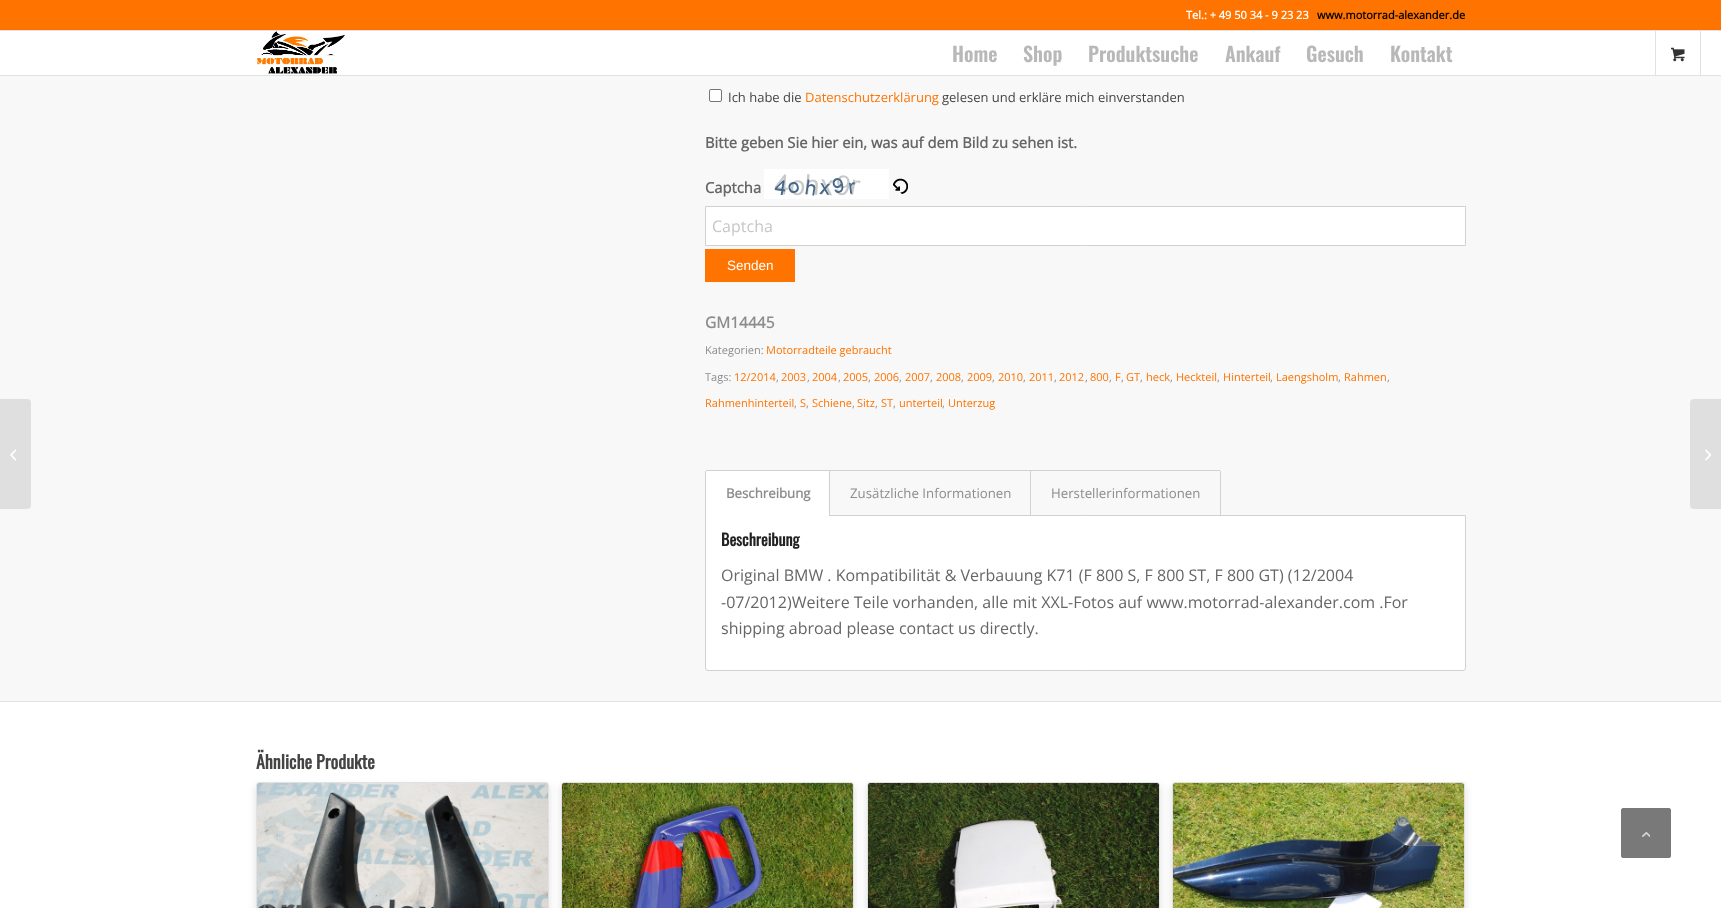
(async () => {
    const canvas = document.querySelector("canvas");
    canvas.width = 1721;
    canvas.height = 908;
    const context = canvas.getContext("2d");
    context.miterLimit = 4;
    context.fontKerning = "normal";
    function write(s, x, y, font, color) {
        context.font = font;
        context.fillStyle = color;
        context.fillText(s, x, y);
    }
    function block(x, y, w, h, color) {
        context.fillStyle = color;
        context.fillRect(x, y, w, h);
    }
    async function photo(src, x, y, w, h) {
        const img = new Image();
        img.src = src;
        await img.decode();
        context.drawImage(img, x, y, w, h);
    }

    block(0, 0, 1721, 908, "rgb(255, 255, 255)");
    block(0, 0, 1721, 30, "rgb(255, 115, 0)");
    block(0, 75, 1721, 1, "rgb(225, 225, 225)");
    context.beginPath();
    context.roundRect(1655.5, 30.5, 45, 45, 1.5);
    context.strokeStyle = "rgb(225, 225, 225)";
    context.stroke();
    block(0, 30, 1721, 1, "rgb(225, 225, 225)");
    write("Tel.: + 49 50 34 - 9 23 23", 1186, 19, "bold 11px Open Sans", "rgb(255, 255, 255)");
    write("www.motorrad-alexander.de", 1317, 19, "bold 11px Open Sans", "rgb(0, 0, 0)");
    await photo("media/1.png", 257, 31, 88, 43);
    write("Home", 952, 62, "600 20px Oswald", "rgb(184, 184, 184)");
    write("Shop", 1023, 62, "600 20px Oswald", "rgb(184, 184, 184)");
    write("Produktsuche", 1088, 62, "600 20px Oswald", "rgb(184, 184, 184)");
    write("Ankauf", 1225, 62, "600 20px Oswald", "rgb(184, 184, 184)");
    write("Gesuch", 1306, 62, "600 20px Oswald", "rgb(184, 184, 184)");
    write("Kontakt", 1390, 62, "600 20px Oswald", "rgb(184, 184, 184)");
    block(1656, 31, 44, 44, "rgb(255, 255, 255)");
    await photo("media/2.png", 1671, 47, 14, 15);
    block(0, 76, 1721, 625, "rgb(248, 248, 248)");
    context.fillStyle = "rgb(223, 223, 223)";
    context.beginPath();
    context.roundRect(0, 399, 31, 110, [0, 4, 4, 0]);
    context.fill();
    await photo("media/3.png", 10, 449, 6, 12);
    context.fillStyle = "rgb(255, 255, 255)";
    context.beginPath();
    context.roundRect(709.5, 89.5, 12, 12, 1.5);
    context.fill();
    context.strokeStyle = "rgb(118, 118, 118)";
    context.stroke();
    write("Ich habe die", 728, 102, "13px Open Sans", "rgb(68, 68, 68)");
    write("Datenschutzerklärung", 805, 102, "13px Open Sans", "rgb(255, 115, 0)");
    write("gelesen und erkläre mich einverstanden", 942, 102, "13px Open Sans", "rgb(68, 68, 68)");
    write("Bitte geben Sie hier ein, was auf dem Bild zu sehen ist.", 705, 148, "bold 14.75px Open Sans", "rgb(102, 102, 102)");
    write("Captcha", 705, 193, "bold 14.75px Open Sans", "rgb(102, 102, 102)");
    await photo("media/4.png", 764, 169, 125, 30);
    await photo("media/5.png", 893, 178, 15, 16);
    context.fillStyle = "rgb(255, 255, 255)";
    context.beginPath();
    context.rect(705.5, 206.5, 760, 39);
    context.fill();
    context.strokeStyle = "rgb(209, 209, 209)";
    context.stroke();
    write("Captcha", 712, 232, "16px Open Sans", "rgb(198, 198, 198)");
    block(705, 249, 90, 33, "rgb(255, 115, 0)");
    write("Senden", 727, 270, "13.5px Liberation Sans", "rgb(255, 255, 255)");
    write("GM14445", 705, 328, "bold 15.5px Open Sans", "rgb(141, 141, 141)");
    write("Kategorien:", 705, 354, "11px Open Sans", "rgb(141, 141, 141)");
    write("Motorradteile gebraucht", 766, 354, "11px Open Sans", "rgb(255, 115, 0)");
    write("Tags:", 705, 381, "11px Open Sans", "rgb(141, 141, 141)");
    write("12/2014", 734, 381, "11px Open Sans", "rgb(255, 115, 0)");
    write(",", 776, 381, "11px Open Sans", "rgb(141, 141, 141)");
    write("2003", 781, 381, "11px Open Sans", "rgb(255, 115, 0)");
    write(",", 807, 381, "11px Open Sans", "rgb(141, 141, 141)");
    write("2004", 812, 381, "11px Open Sans", "rgb(255, 115, 0)");
    write(",", 838, 381, "11px Open Sans", "rgb(141, 141, 141)");
    write("2005", 843, 381, "11px Open Sans", "rgb(255, 115, 0)");
    write(",", 868, 381, "11px Open Sans", "rgb(141, 141, 141)");
    write("2006", 874, 381, "11px Open Sans", "rgb(255, 115, 0)");
    write(",", 899, 381, "11px Open Sans", "rgb(141, 141, 141)");
    write("2007", 905, 381, "11px Open Sans", "rgb(255, 115, 0)");
    write(",", 930, 381, "11px Open Sans", "rgb(141, 141, 141)");
    write("2008", 936, 381, "11px Open Sans", "rgb(255, 115, 0)");
    write(",", 961, 381, "11px Open Sans", "rgb(141, 141, 141)");
    write("2009", 967, 381, "11px Open Sans", "rgb(255, 115, 0)");
    write(",", 992, 381, "11px Open Sans", "rgb(141, 141, 141)");
    write("2010", 998, 381, "11px Open Sans", "rgb(255, 115, 0)");
    write(",", 1023, 381, "11px Open Sans", "rgb(141, 141, 141)");
    write("2011", 1029, 381, "11px Open Sans", "rgb(255, 115, 0)");
    write(",", 1054, 381, "11px Open Sans", "rgb(141, 141, 141)");
    write("2012", 1059, 381, "11px Open Sans", "rgb(255, 115, 0)");
    write(",", 1085, 381, "11px Open Sans", "rgb(141, 141, 141)");
    write("800", 1090, 381, "11px Open Sans", "rgb(255, 115, 0)");
    write(",", 1109, 381, "11px Open Sans", "rgb(141, 141, 141)");
    write("F", 1115, 381, "11px Open Sans", "rgb(255, 115, 0)");
    write(",", 1121, 381, "11px Open Sans", "rgb(141, 141, 141)");
    write("GT", 1126, 381, "11px Open Sans", "rgb(255, 115, 0)");
    write(",", 1140, 381, "11px Open Sans", "rgb(141, 141, 141)");
    write("heck", 1146, 381, "11px Open Sans", "rgb(255, 115, 0)");
    write(",", 1170, 381, "11px Open Sans", "rgb(141, 141, 141)");
    write("Heckteil", 1176, 381, "11px Open Sans", "rgb(255, 115, 0)");
    write(",", 1217, 381, "11px Open Sans", "rgb(141, 141, 141)");
    write("Hinterteil", 1223, 381, "11px Open Sans", "rgb(255, 115, 0)");
    write(",", 1270, 381, "11px Open Sans", "rgb(141, 141, 141)");
    write("Laengsholm", 1276, 381, "11px Open Sans", "rgb(255, 115, 0)");
    write(",", 1338, 381, "11px Open Sans", "rgb(141, 141, 141)");
    write("Rahmen", 1344, 381, "11px Open Sans", "rgb(255, 115, 0)");
    write(",", 1387, 381, "11px Open Sans", "rgb(141, 141, 141)");
    write("Rahmenhinterteil", 705, 407, "11px Open Sans", "rgb(255, 115, 0)");
    write(",", 794, 407, "11px Open Sans", "rgb(141, 141, 141)");
    write("S", 800, 407, "11px Open Sans", "rgb(255, 115, 0)");
    write(",", 806, 407, "11px Open Sans", "rgb(141, 141, 141)");
    write("Schiene", 812, 407, "11px Open Sans", "rgb(255, 115, 0)");
    write(",", 852, 407, "11px Open Sans", "rgb(141, 141, 141)");
    write("Sitz", 857, 407, "11px Open Sans", "rgb(255, 115, 0)");
    write(",", 875, 407, "11px Open Sans", "rgb(141, 141, 141)");
    write("ST", 881, 407, "11px Open Sans", "rgb(255, 115, 0)");
    write(",", 893, 407, "11px Open Sans", "rgb(141, 141, 141)");
    write("unterteil", 899, 407, "11px Open Sans", "rgb(255, 115, 0)");
    write(",", 942, 407, "11px Open Sans", "rgb(141, 141, 141)");
    write("Unterzug", 948, 407, "11px Open Sans", "rgb(255, 115, 0)");
    context.fillStyle = "rgb(255, 255, 255)";
    context.beginPath();
    context.roundRect(705.5, 515.5, 760, 155, [0, 0, 2.5, 2.5]);
    context.fill();
    context.stroke();
    block(705, 470, 124, 46, "rgb(255, 255, 255)");
    block(829, 470, 202, 1, "rgb(209, 209, 209)");
    block(706, 470, 124, 1, "rgb(209, 209, 209)");
    block(829, 470, 1, 46, "rgb(209, 209, 209)");
    block(705, 471, 1, 45, "rgb(209, 209, 209)");
    write("Beschreibung", 726, 498, "bold 13.25px Open Sans", "rgb(141, 141, 141)");
    block(1030, 470, 1, 46, "rgb(209, 209, 209)");
    write("Zusätzliche Informationen", 850, 498, "13.25px Open Sans", "rgb(141, 141, 141)");
    block(1030, 470, 190, 1, "rgb(209, 209, 209)");
    block(1220, 471, 1, 45, "rgb(209, 209, 209)");
    write("Herstellerinformationen", 1051, 498, "13.25px Open Sans", "rgb(141, 141, 141)");
    write("Beschreibung", 721, 546, "bold 16px Oswald", "rgb(34, 34, 34)");
    write("Original BMW . Kompatibilität & Verbauung K71 (F 800 S, F 800 ST, F 800 GT) (12/2004", 721, 581, "16px Open Sans", "rgb(102, 102, 102)");
    write("-07/2012)Weitere Teile vorhanden, alle mit XXL-Fotos auf www.motorrad-alexander.com .For", 721, 608, "16px Open Sans", "rgb(102, 102, 102)");
    write("shipping abroad please contact us directly.", 721, 634, "16px Open Sans", "rgb(102, 102, 102)");
    block(0, 701, 1721, 1, "rgb(225, 225, 225)");
    write("Ähnliche Produkte", 256, 769, "bold 18px Oswald", "rgb(68, 68, 68)");
    context.fillStyle = "rgba(0, 0, 0, 0.1)";
    context.filter = "blur(3.5px)";
    context.beginPath();
    context.rect(255, 786, 295, 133);
    context.fill();
    context.filter = "none";
    context.beginPath();
    context.roundRect(256.5, 782.5, 292, 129, 2.5);
    context.strokeStyle = "rgb(225, 225, 225)";
    context.stroke();
    await photo("media/6.png", 257, 783, 291, 125);
    context.filter = "blur(3.5px)";
    context.beginPath();
    context.rect(560, 786, 295, 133);
    context.fill();
    context.filter = "none";
    context.beginPath();
    context.roundRect(561.5, 782.5, 292, 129, 2.5);
    context.stroke();
    await photo("media/7.png", 562, 783, 291, 125);
    context.filter = "blur(3.5px)";
    context.beginPath();
    context.rect(866, 786, 295, 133);
    context.fill();
    context.filter = "none";
    context.beginPath();
    context.roundRect(867.5, 782.5, 292, 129, 2.5);
    context.stroke();
    await photo("media/8.png", 868, 783, 291, 125);
    context.filter = "blur(3.5px)";
    context.beginPath();
    context.rect(1171, 786, 295, 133);
    context.fill();
    context.filter = "none";
    context.beginPath();
    context.roundRect(1172.5, 782.5, 292, 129, 2.5);
    context.stroke();
    await photo("media/9.png", 1173, 783, 291, 125);
    context.fillStyle = "rgb(223, 223, 223)";
    context.beginPath();
    context.roundRect(1690, 399, 31, 110, [4, 0, 0, 4]);
    context.fill();
    await photo("media/10.png", 1705, 449, 6, 12);
    context.fillStyle = "rgb(121, 121, 121)";
    context.beginPath();
    context.roundRect(1621.5, 808.5, 49, 49, 1.5);
    context.fill();
    context.strokeStyle = "rgb(121, 121, 121)";
    context.stroke();
    await photo("media/11.png", 1642, 832, 8, 5);
})();
